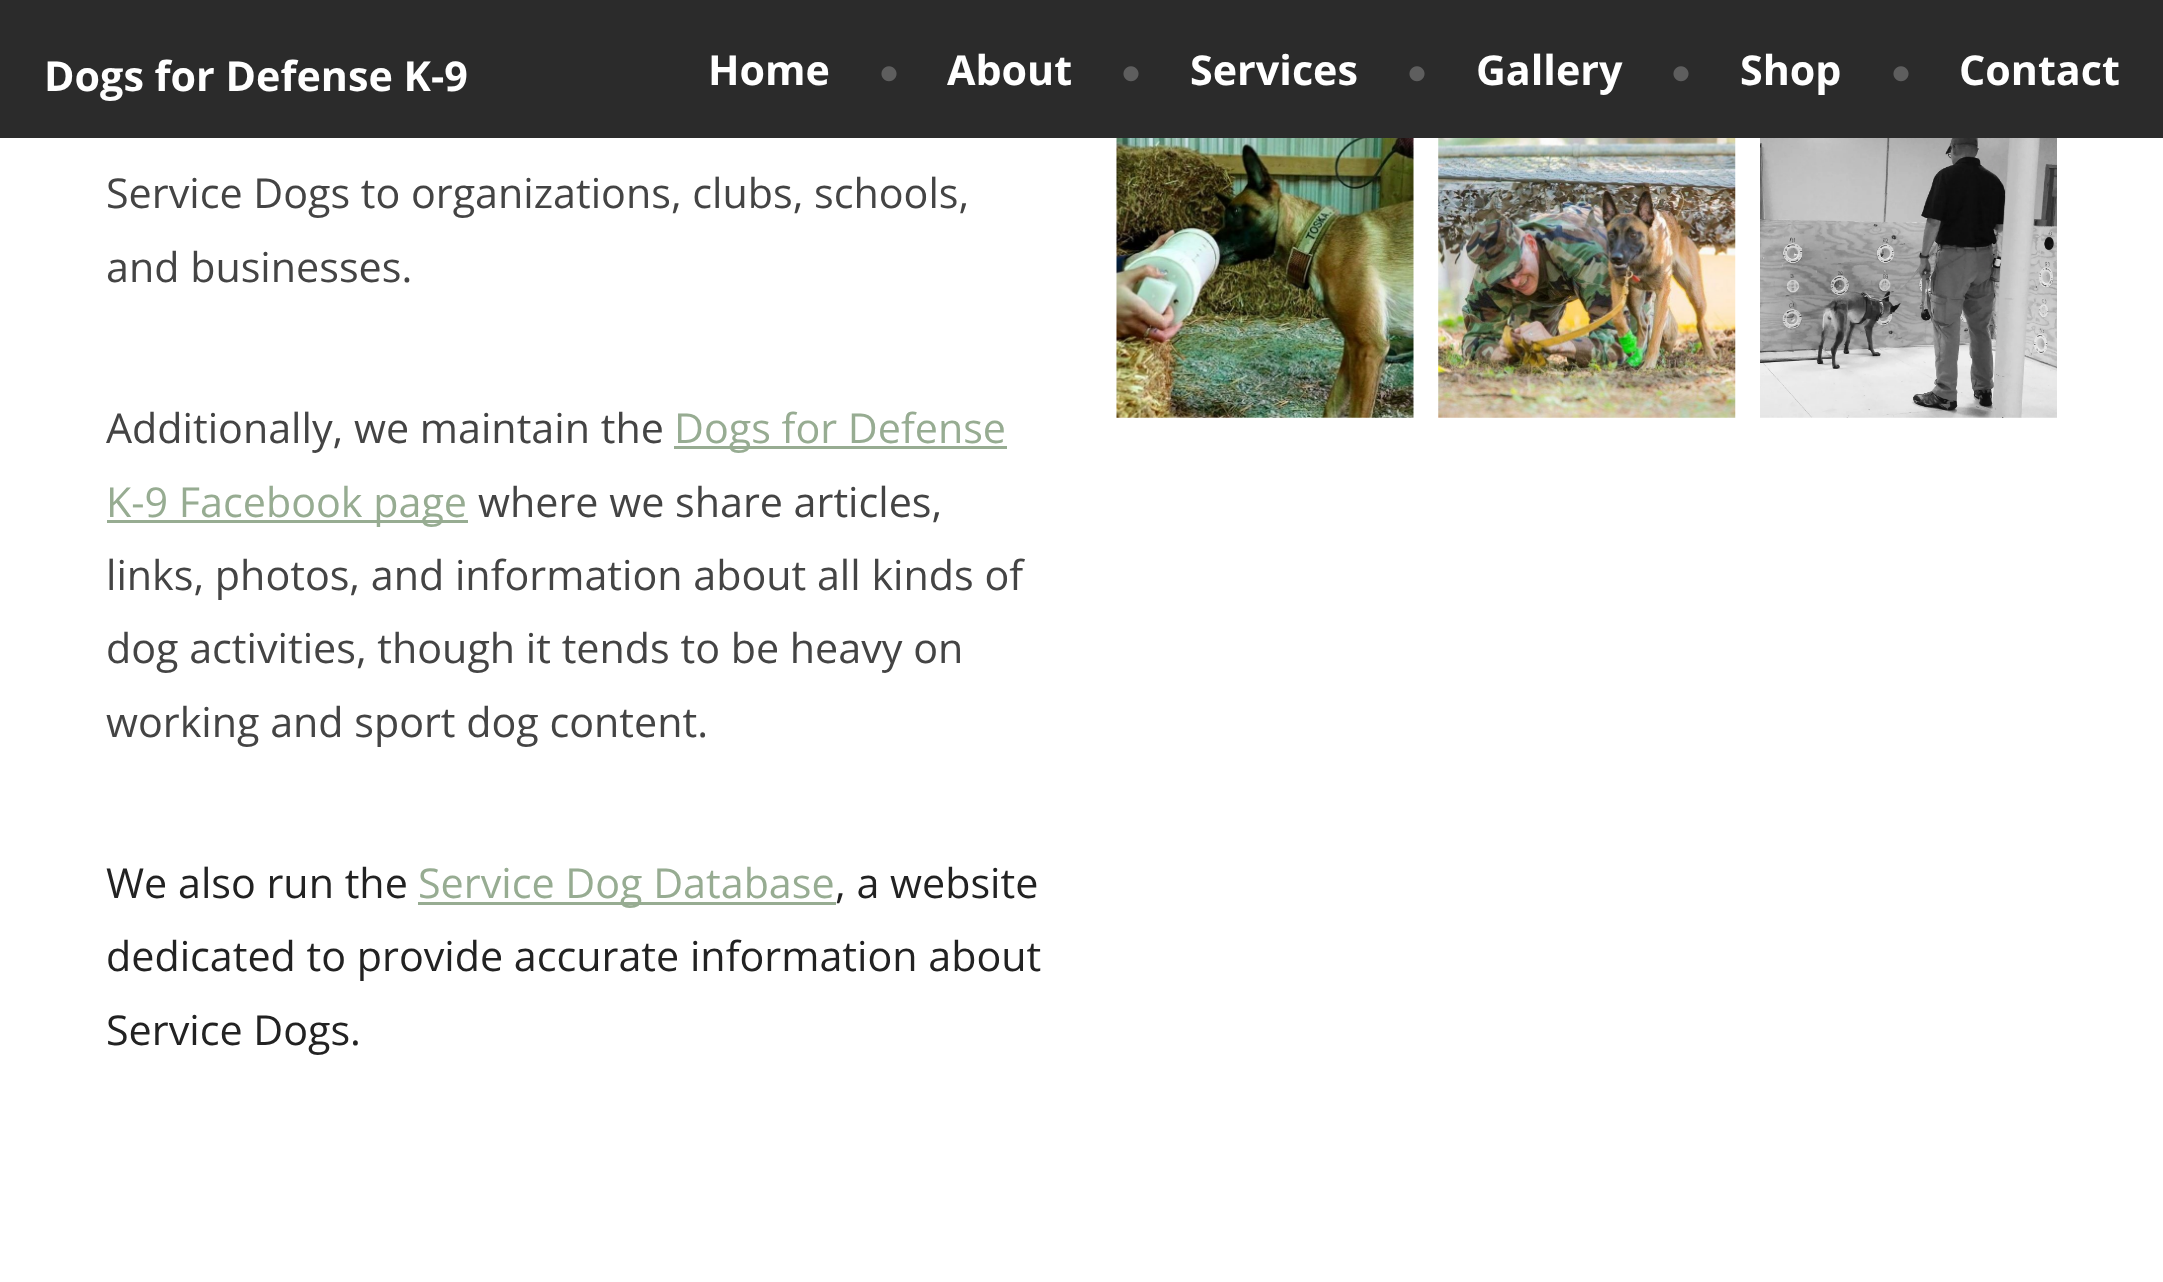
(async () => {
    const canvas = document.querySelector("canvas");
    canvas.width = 2163;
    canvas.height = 1282;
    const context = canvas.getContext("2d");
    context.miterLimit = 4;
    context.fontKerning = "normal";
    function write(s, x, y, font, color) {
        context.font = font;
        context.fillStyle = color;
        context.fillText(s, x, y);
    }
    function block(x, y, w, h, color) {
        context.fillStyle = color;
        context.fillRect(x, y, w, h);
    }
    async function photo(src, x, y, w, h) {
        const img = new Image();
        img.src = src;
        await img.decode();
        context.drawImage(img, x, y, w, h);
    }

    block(0, 0, 2163, 1282, "rgb(255, 255, 255)");
    block(0, 0, 2163, 138, "rgb(43, 43, 43)");
    write("Dogs for Defense K-9", 44, 91, "bold 41.25px Open Sans", "rgb(255, 255, 255)");
    write("Home", 708, 85, "bold 41.25px Open Sans", "rgb(255, 255, 255)");
    write("•", 874, 91, "50px Chivo", "rgb(94, 94, 94)");
    write("About", 947, 85, "bold 41.25px Open Sans", "rgb(255, 255, 255)");
    write("•", 1116, 91, "50px Chivo", "rgb(94, 94, 94)");
    write("Services", 1190, 85, "bold 41.25px Open Sans", "rgb(255, 255, 255)");
    write("•", 1402, 91, "50px Chivo", "rgb(94, 94, 94)");
    write("Gallery", 1476, 85, "bold 41.25px Open Sans", "rgb(255, 255, 255)");
    write("•", 1666, 91, "50px Chivo", "rgb(94, 94, 94)");
    write("Shop", 1740, 85, "bold 41.25px Open Sans", "rgb(255, 255, 255)");
    write("•", 1886, 91, "50px Chivo", "rgb(94, 94, 94)");
    write("Contact", 1959, 85, "bold 41.25px Open Sans", "rgb(255, 255, 255)");
    write("Service Dogs to organizations, clubs, schools,", 106, 208, "41.25px Open Sans", "rgb(68, 68, 68)");
    write("and businesses.", 106, 282, "41.25px Open Sans", "rgb(68, 68, 68)");
    write("Additionally, we maintain the", 106, 443, "41.25px Open Sans", "rgb(68, 68, 68)");
    block(674, 446, 333, 3, "rgb(151, 172, 146)");
    write("Dogs for Defense", 674, 443, "41.25px Open Sans", "rgb(151, 172, 146)");
    block(107, 520, 361, 3, "rgb(151, 172, 146)");
    write("K-9 Facebook page", 106, 517, "41.25px Open Sans", "rgb(151, 172, 146)");
    write("where we share articles,", 478, 517, "41.25px Open Sans", "rgb(68, 68, 68)");
    write("links, photos, and information about all kinds of", 106, 590, "41.25px Open Sans", "rgb(68, 68, 68)");
    write("dog activities, though it tends to be heavy on", 106, 663, "41.25px Open Sans", "rgb(68, 68, 68)");
    write("working and sport dog content.", 106, 737, "41.25px Open Sans", "rgb(68, 68, 68)");
    write("We also run the", 106, 898, "41.25px Open Sans", "rgb(34, 34, 34)");
    block(418, 902, 418, 3, "rgb(151, 172, 146)");
    write("Service Dog Database", 418, 898, "41.25px Open Sans", "rgb(151, 172, 146)");
    write(", a website", 835, 898, "41.25px Open Sans", "rgb(34, 34, 34)");
    write("dedicated to provide accurate information about", 106, 971, "41.25px Open Sans", "rgb(34, 34, 34)");
    write("Service Dogs.", 106, 1045, "41.25px Open Sans", "rgb(34, 34, 34)");
    await photo("media/1.png", 1116, 138, 298, 280);
    await photo("media/2.png", 1438, 138, 298, 280);
    await photo("media/3.png", 1760, 138, 297, 280);
})();
